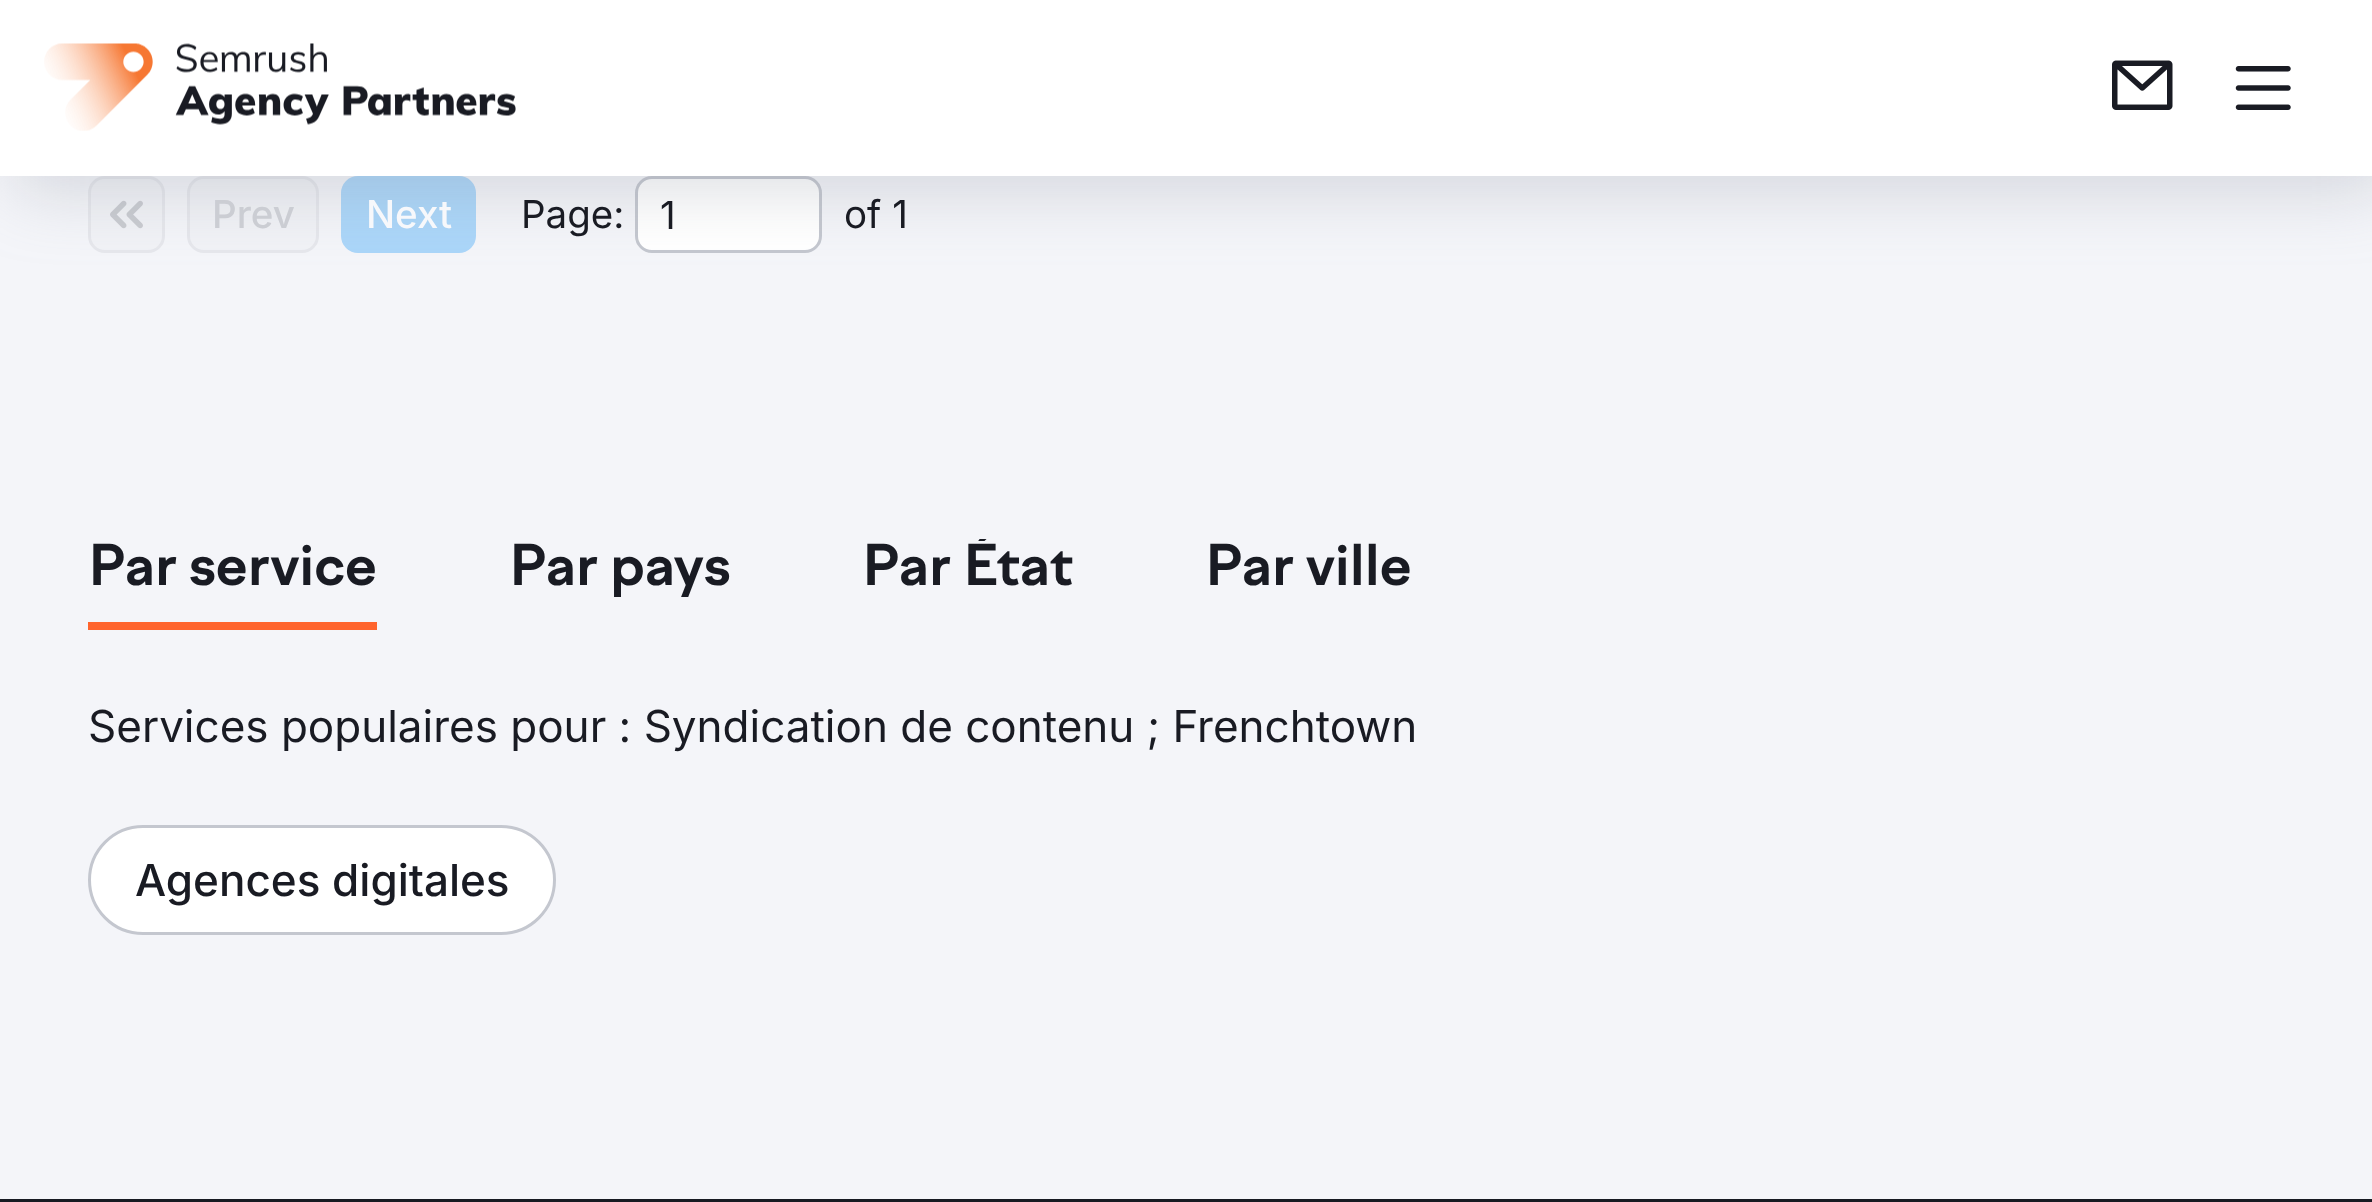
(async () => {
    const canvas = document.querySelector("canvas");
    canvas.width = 2372;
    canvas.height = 1202;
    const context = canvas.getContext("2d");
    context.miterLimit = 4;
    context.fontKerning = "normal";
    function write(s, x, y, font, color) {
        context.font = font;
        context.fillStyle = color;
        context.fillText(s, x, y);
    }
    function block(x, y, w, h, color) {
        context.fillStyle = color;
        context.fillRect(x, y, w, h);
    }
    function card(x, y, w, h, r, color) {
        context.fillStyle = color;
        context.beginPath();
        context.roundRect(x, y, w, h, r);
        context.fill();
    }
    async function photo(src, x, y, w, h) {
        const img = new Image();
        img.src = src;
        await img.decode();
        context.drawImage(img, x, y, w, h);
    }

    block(0, 0, 2372, 1202, "rgb(244, 245, 249)");
    context.fillStyle = "rgb(241, 242, 246)";
    context.beginPath();
    context.roundRect(89.5, 177.5, 74, 74, 15.5);
    context.fill();
    context.strokeStyle = "rgb(230, 231, 236)";
    context.lineWidth = 3;
    context.stroke();
    await photo("media/4.png", 110, 200, 33, 29);
    context.beginPath();
    context.roundRect(188.5, 177.5, 129, 74, 15.5);
    context.fill();
    context.stroke();
    card(341, 176, 135, 77, 17, "rgb(171, 214, 249)");
    context.fillStyle = "rgb(255, 255, 255)";
    context.beginPath();
    context.roundRect(636.5, 177.5, 184, 74, 15.5);
    context.fill();
    context.strokeStyle = "rgb(196, 199, 207)";
    context.stroke();
    context.fillStyle = "rgba(137, 141, 154, 0.3)";
    context.filter = "blur(34.5px)";
    context.beginPath();
    context.rect(14, 14, 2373, 176);
    context.fill();
    context.filter = "none";
    block(0, 0, 2372, 176, "rgb(255, 255, 255)");
    await photo("media/1.png", 44, 43, 472, 88);
    await photo("media/2.png", 2112, 60, 61, 50);
    await photo("media/3.png", 2235, 66, 56, 44);
    write("Prev", 212, 228, "500 38.5px Inter", "rgb(203, 205, 211)");
    write("Next", 366, 228, "500 38.5px Inter", "rgb(247, 248, 251)");
    write("Page:", 521, 228, "38.5px Inter", "rgb(25, 27, 35)");
    write("1", 660, 229, "38.5px Inter", "rgb(25, 27, 35)");
    write("of 1", 844, 228, "38.5px Inter", "rgb(25, 27, 35)");
    write("Par service", 88, 585, "bold 55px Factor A", "rgb(25, 27, 35)");
    block(88, 622, 289, 8, "rgb(255, 100, 45)");
    write("Par pays", 509, 585, "bold 55px Factor A", "rgb(25, 27, 35)");
    context.save();
    context.beginPath();
    context.rect(864, 539, 209, 66);
    context.clip();
    write("Par État", 862, 585, "bold 55px Factor A", "rgb(25, 27, 35)");
    context.restore();
    write("Par ville", 1205, 585, "bold 55px Factor A", "rgb(25, 27, 35)");
    write("Services populaires pour : Syndication de contenu ; Frenchtown", 88, 742, "44px Inter", "rgb(25, 27, 35)");
    context.fillStyle = "rgb(255, 255, 255)";
    context.beginPath();
    context.roundRect(89.5, 826.5, 465, 107, 53.5);
    context.fill();
    context.stroke();
    write("Agences digitales", 135, 896, "500 44px Inter", "rgb(25, 27, 35)");
    block(0, 1199, 2372, 3, "rgb(23, 26, 34)");
})();
